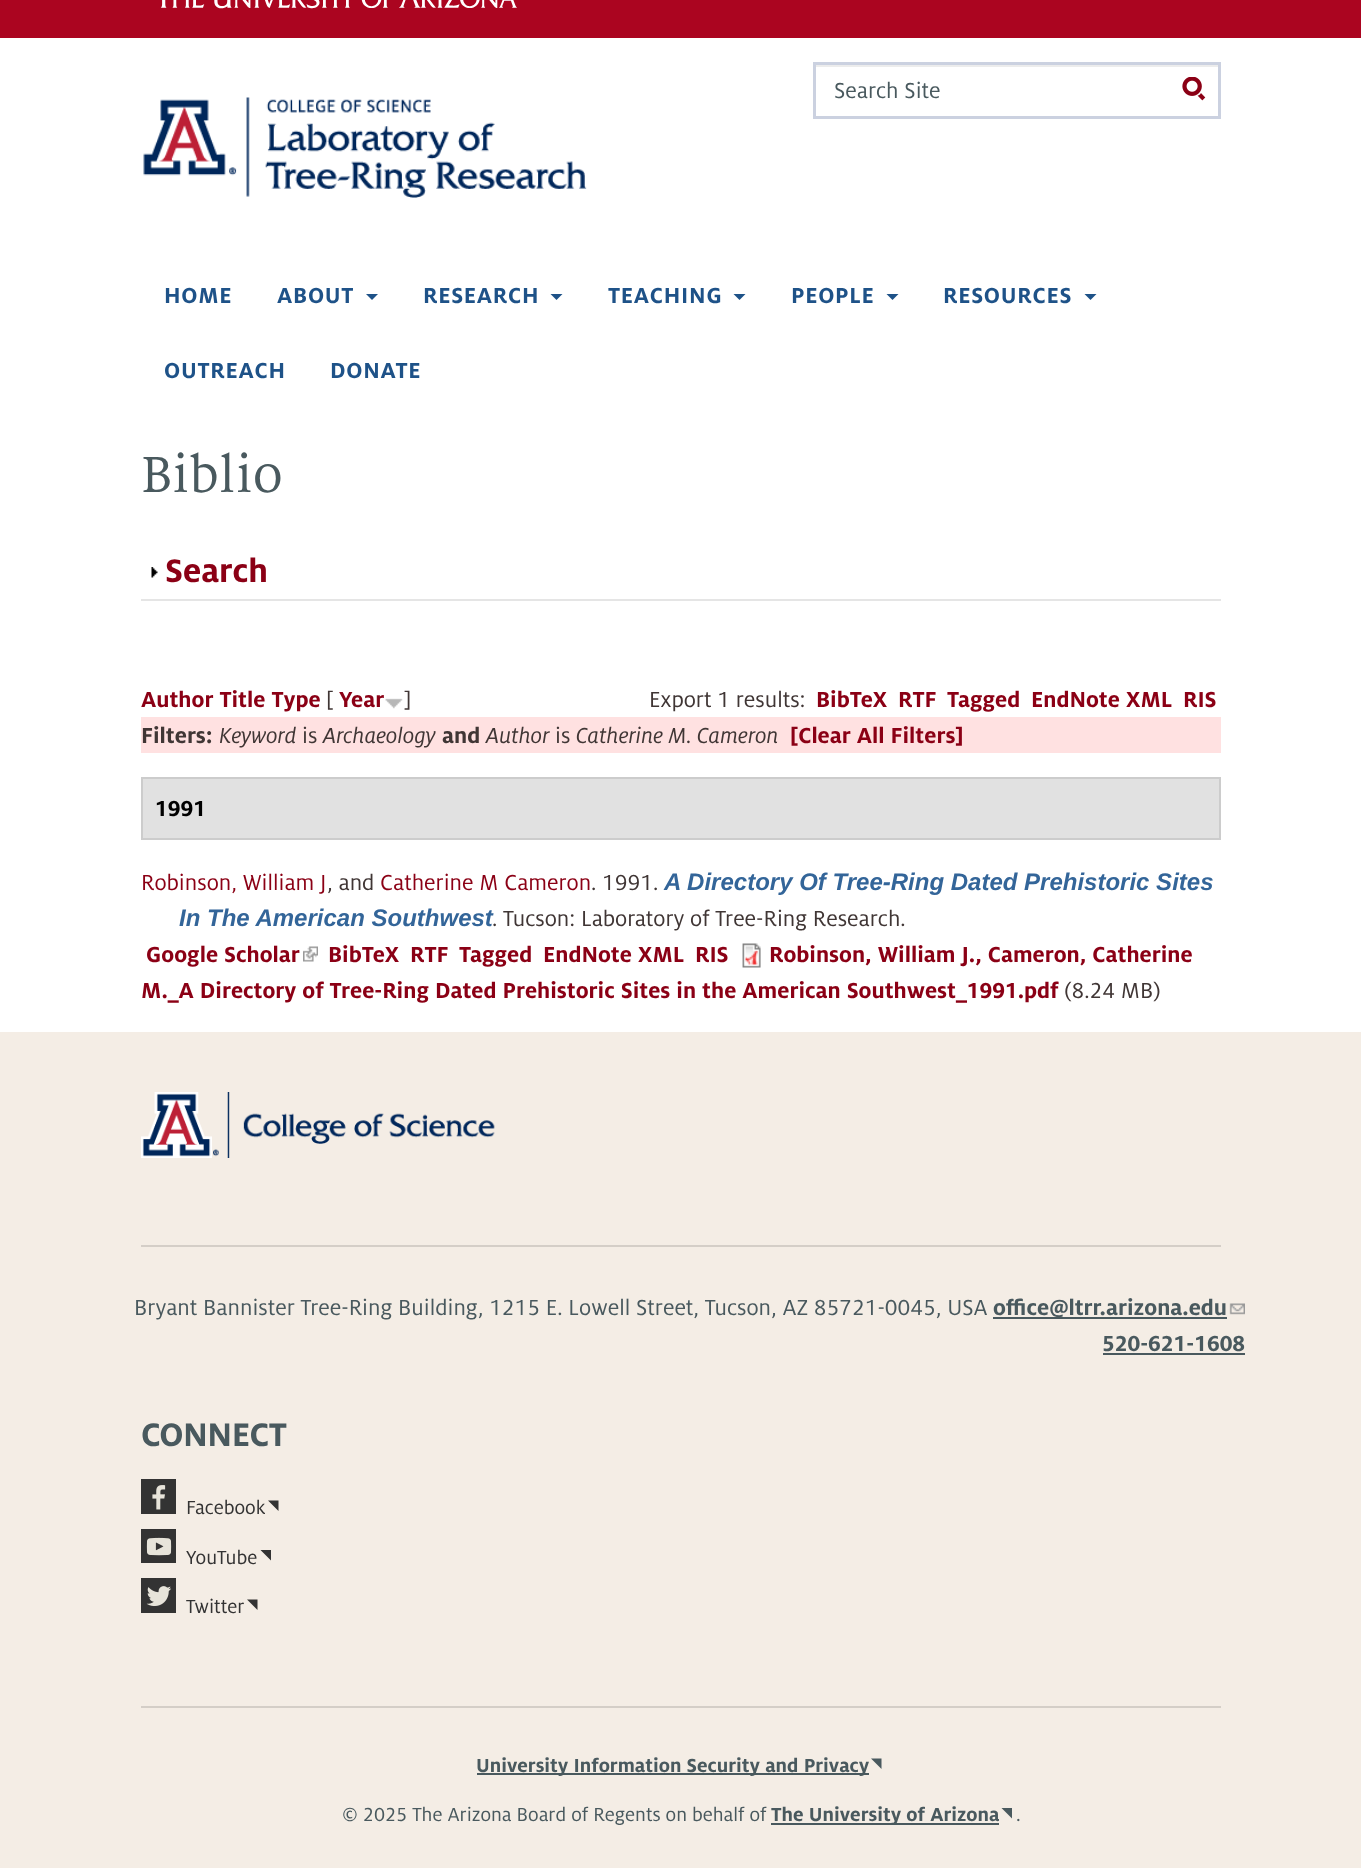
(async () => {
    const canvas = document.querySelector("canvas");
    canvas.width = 1361;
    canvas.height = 1868;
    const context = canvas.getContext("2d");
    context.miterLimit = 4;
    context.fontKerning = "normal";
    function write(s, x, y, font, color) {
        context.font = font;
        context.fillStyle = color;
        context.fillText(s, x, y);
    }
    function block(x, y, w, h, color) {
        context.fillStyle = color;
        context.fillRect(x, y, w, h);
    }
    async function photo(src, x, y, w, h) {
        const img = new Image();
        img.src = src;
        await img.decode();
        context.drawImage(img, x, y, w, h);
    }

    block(0, 0, 1361, 1868, "rgb(255, 255, 255)");
    block(0, 0, 1361, 38, "rgb(171, 5, 32)");
    await photo("media/1.png", 161, 0, 356, 9);
    block(816, 65, 402, 2, "rgb(236, 236, 236)");
    context.strokeStyle = "rgb(203, 209, 224)";
    context.lineWidth = 3;
    context.strokeRect(814.5, 63.5, 405, 54);
    write("Search Site", 834, 98, "24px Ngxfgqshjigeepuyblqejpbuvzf", "rgb(73, 89, 94)");
    await photo("media/2.png", 1182, 77, 24, 24);
    await photo("media/3.png", 143, 97, 444, 101);
    context.letterSpacing = "0.75px";
    write("HOME", 164, 303, "bold 24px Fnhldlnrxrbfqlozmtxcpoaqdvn", "rgb(30, 82, 136)");
    write("ABOUT", 277, 303, "bold 24px Fnhldlnrxrbfqlozmtxcpoaqdvn", "rgb(30, 82, 136)");
    context.beginPath();
    context.moveTo(366, 294);
    context.lineTo(378, 294);
    context.lineTo(372, 300);
    context.closePath();
    context.fill();
    write("RESEARCH", 423, 303, "bold 24px Fnhldlnrxrbfqlozmtxcpoaqdvn", "rgb(30, 82, 136)");
    context.beginPath();
    context.moveTo(550.5, 294);
    context.lineTo(562.5, 294);
    context.lineTo(556.5, 300);
    context.closePath();
    context.fill();
    write("TEACHING", 608, 303, "bold 24px Fnhldlnrxrbfqlozmtxcpoaqdvn", "rgb(30, 82, 136)");
    context.beginPath();
    context.moveTo(733.5, 294);
    context.lineTo(745.5, 294);
    context.lineTo(739.5, 300);
    context.closePath();
    context.fill();
    write("PEOPLE", 791, 303, "bold 24px Fnhldlnrxrbfqlozmtxcpoaqdvn", "rgb(30, 82, 136)");
    context.beginPath();
    context.moveTo(886.5, 294);
    context.lineTo(898.5, 294);
    context.lineTo(892.5, 300);
    context.closePath();
    context.fill();
    write("RESOURCES", 943, 303, "bold 24px Fnhldlnrxrbfqlozmtxcpoaqdvn", "rgb(30, 82, 136)");
    context.beginPath();
    context.moveTo(1084.5, 294);
    context.lineTo(1096.5, 294);
    context.lineTo(1090.5, 300);
    context.closePath();
    context.fill();
    write("OUTREACH", 164, 378, "bold 24px Fnhldlnrxrbfqlozmtxcpoaqdvn", "rgb(30, 82, 136)");
    write("DONATE", 330, 378, "bold 24px Fnhldlnrxrbfqlozmtxcpoaqdvn", "rgb(30, 82, 136)");
    context.letterSpacing = "0px";
    write("Biblio", 141, 492, "56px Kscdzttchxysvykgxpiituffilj", "rgb(73, 89, 94)");
    block(141, 599, 1080, 2, "rgb(229, 229, 229)");
    await photo("media/4.png", 151, 567, 7, 11);
    write("Search", 165, 582, "bold 36px Fnhldlnrxrbfqlozmtxcpoaqdvn", "rgb(139, 0, 21)");
    write("Author Title Type", 141, 707, "bold 24px Fnhldlnrxrbfqlozmtxcpoaqdvn", "rgb(139, 0, 21)");
    write("[", 326, 707, "24px Ngxfgqshjigeepuyblqejpbuvzf", "rgb(64, 54, 53)");
    write("Year", 339, 707, "bold 24px Fnhldlnrxrbfqlozmtxcpoaqdvn", "rgb(139, 0, 21)");
    await photo("media/5.png", 385, 698, 18, 11);
    write("]", 404, 707, "24px Ngxfgqshjigeepuyblqejpbuvzf", "rgb(64, 54, 53)");
    write("Export 1 results:", 649, 707, "24px Ngxfgqshjigeepuyblqejpbuvzf", "rgb(64, 54, 53)");
    write("BibTeX", 816, 707, "bold 24px Fnhldlnrxrbfqlozmtxcpoaqdvn", "rgb(139, 0, 21)");
    write("RTF", 898, 707, "bold 24px Fnhldlnrxrbfqlozmtxcpoaqdvn", "rgb(139, 0, 21)");
    write("Tagged", 947, 707, "bold 24px Fnhldlnrxrbfqlozmtxcpoaqdvn", "rgb(139, 0, 21)");
    write("EndNote XML", 1031, 707, "bold 24px Fnhldlnrxrbfqlozmtxcpoaqdvn", "rgb(139, 0, 21)");
    write("RIS", 1183, 707, "bold 24px Fnhldlnrxrbfqlozmtxcpoaqdvn", "rgb(139, 0, 21)");
    block(141, 717, 1080, 36, "rgb(255, 225, 225)");
    write("Filters:", 141, 743, "bold 24px Fnhldlnrxrbfqlozmtxcpoaqdvn", "rgb(64, 54, 53)");
    write("Keyword", 219, 743, "italic 24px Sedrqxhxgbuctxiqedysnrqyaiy", "rgb(64, 54, 53)");
    write("is", 302, 743, "24px Ngxfgqshjigeepuyblqejpbuvzf", "rgb(64, 54, 53)");
    write("Archaeology", 323, 743, "italic 24px Sedrqxhxgbuctxiqedysnrqyaiy", "rgb(64, 54, 53)");
    write("and", 442, 743, "bold 24px Fnhldlnrxrbfqlozmtxcpoaqdvn", "rgb(64, 54, 53)");
    write("Author", 486, 743, "italic 24px Sedrqxhxgbuctxiqedysnrqyaiy", "rgb(64, 54, 53)");
    write("is", 555, 743, "24px Ngxfgqshjigeepuyblqejpbuvzf", "rgb(64, 54, 53)");
    write("Catherine M. Cameron", 576, 743, "italic 24px Sedrqxhxgbuctxiqedysnrqyaiy", "rgb(64, 54, 53)");
    write("[Clear All Filters]", 790, 743, "bold 24px Fnhldlnrxrbfqlozmtxcpoaqdvn", "rgb(139, 0, 21)");
    context.fillStyle = "rgb(225, 225, 225)";
    context.beginPath();
    context.rect(142, 778, 1078, 61);
    context.fill();
    context.strokeStyle = "rgb(204, 204, 204)";
    context.lineWidth = 2;
    context.stroke();
    write("1991", 155, 816, "bold 24px Fnhldlnrxrbfqlozmtxcpoaqdvn", "rgb(0, 0, 0)");
    write("Robinson, William J", 141, 890, "24px Ngxfgqshjigeepuyblqejpbuvzf", "rgb(139, 0, 21)");
    write(", and", 327, 890, "24px Ngxfgqshjigeepuyblqejpbuvzf", "rgb(64, 54, 53)");
    write("Catherine M Cameron", 380, 890, "24px Ngxfgqshjigeepuyblqejpbuvzf", "rgb(139, 0, 21)");
    write(". 1991.", 591, 890, "24px Ngxfgqshjigeepuyblqejpbuvzf", "rgb(64, 54, 53)");
    write("A Directory Of Tree-Ring Dated Prehistoric Sites", 664, 890, "italic bold 24px Liberation Sans", "rgb(51, 101, 153)");
    write("In The American Southwest", 179, 926, "italic bold 24px Liberation Sans", "rgb(51, 101, 153)");
    write(". Tucson: Laboratory of Tree-Ring Research.", 492, 926, "24px Ngxfgqshjigeepuyblqejpbuvzf", "rgb(64, 54, 53)");
    write("Google Scholar", 146, 962, "bold 24px Fnhldlnrxrbfqlozmtxcpoaqdvn", "rgb(139, 0, 21)");
    await photo("media/6.png", 303, 946, 15, 16);
    write("BibTeX", 328, 962, "bold 24px Fnhldlnrxrbfqlozmtxcpoaqdvn", "rgb(139, 0, 21)");
    write("RTF", 410, 962, "bold 24px Fnhldlnrxrbfqlozmtxcpoaqdvn", "rgb(139, 0, 21)");
    write("Tagged", 459, 962, "bold 24px Fnhldlnrxrbfqlozmtxcpoaqdvn", "rgb(139, 0, 21)");
    write("EndNote XML", 543, 962, "bold 24px Fnhldlnrxrbfqlozmtxcpoaqdvn", "rgb(139, 0, 21)");
    write("RIS", 695, 962, "bold 24px Fnhldlnrxrbfqlozmtxcpoaqdvn", "rgb(139, 0, 21)");
    await photo("media/7.png", 742, 943, 19, 25);
    write("Robinson, William J., Cameron, Catherine", 769, 962, "bold 24px Fnhldlnrxrbfqlozmtxcpoaqdvn", "rgb(139, 0, 21)");
    write("M._A Directory of Tree-Ring Dated Prehistoric Sites in the American Southwest_1991.pdf", 141, 998, "bold 24px Fnhldlnrxrbfqlozmtxcpoaqdvn", "rgb(139, 0, 21)");
    write("(8.24 MB)", 1064, 998, "24px Ngxfgqshjigeepuyblqejpbuvzf", "rgb(64, 54, 53)");
    block(0, 1032, 1361, 836, "rgb(244, 237, 229)");
    await photo("media/8.png", 141, 1092, 354, 66);
    block(141, 1245, 1080, 2, "rgb(212, 206, 199)");
    write("Bryant Bannister Tree-Ring Building, 1215 E. Lowell Street, Tucson, AZ 85721-0045, USA", 134, 1315, "24px Ngxfgqshjigeepuyblqejpbuvzf", "rgb(73, 89, 94)");
    block(993, 1317, 234, 2, "rgb(73, 89, 94)");
    write("office@ltrr.arizona.edu", 993, 1315, "bold 24px Fnhldlnrxrbfqlozmtxcpoaqdvn", "rgb(73, 89, 94)");
    await photo("media/9.png", 1229, 1303, 16, 12);
    write("520-621-1608", 1102, 1351, "bold 24px Fnhldlnrxrbfqlozmtxcpoaqdvn", "rgb(73, 89, 94)");
    block(1103, 1353, 142, 2, "rgb(73, 89, 94)");
    context.letterSpacing = "-0.5px";
    write("CONNECT", 141, 1446, "bold 36px Fnhldlnrxrbfqlozmtxcpoaqdvn", "rgb(73, 89, 94)");
    await photo("media/10.png", 141, 1479, 35, 35);
    context.letterSpacing = "0px";
    write("Facebook", 186, 1514, "21px Ngxfgqshjigeepuyblqejpbuvzf", "rgb(51, 51, 51)");
    context.beginPath();
    context.moveTo(278.5, 1511);
    context.lineTo(268, 1500.5);
    context.lineTo(278.5, 1500.5);
    context.closePath();
    context.moveTo(271, 1560.5);
    context.lineTo(260.5, 1550);
    context.lineTo(271, 1550);
    context.closePath();
    context.fill();
    await photo("media/11.png", 141, 1529, 35, 34);
    write("YouTube", 186, 1564, "21px Ngxfgqshjigeepuyblqejpbuvzf", "rgb(51, 51, 51)");
    await photo("media/12.png", 141, 1578, 35, 35);
    write("Twitter", 186, 1613, "21px Ngxfgqshjigeepuyblqejpbuvzf", "rgb(51, 51, 51)");
    context.beginPath();
    context.moveTo(257.5, 1610);
    context.lineTo(247, 1599.5);
    context.lineTo(257.5, 1599.5);
    context.closePath();
    context.fill();
    block(141, 1706, 1080, 2, "rgb(212, 206, 199)");
    block(477, 1773, 392, 2, "rgb(73, 89, 94)");
    write("University Information Security and Privacy", 476, 1772, "bold 20.9px Fnhldlnrxrbfqlozmtxcpoaqdvn", "rgb(73, 89, 94)");
    context.beginPath();
    context.moveTo(881.5, 1769);
    context.lineTo(871, 1758.5);
    context.lineTo(881.5, 1758.5);
    context.closePath();
    context.fill();
    write("© 2025 The Arizona Board of Regents on behalf of", 342, 1821, "20.9px Ngxfgqshjigeepuyblqejpbuvzf", "rgb(73, 89, 94)");
    block(771, 1823, 228, 2, "rgb(73, 89, 94)");
    write("The University of Arizona", 771, 1821, "bold 20.9px Fnhldlnrxrbfqlozmtxcpoaqdvn", "rgb(73, 89, 94)");
    context.beginPath();
    context.moveTo(1012, 1818.5);
    context.lineTo(1001.5, 1808);
    context.lineTo(1012, 1808);
    context.closePath();
    context.fill();
    write(".", 1016, 1821, "20.9px Ngxfgqshjigeepuyblqejpbuvzf", "rgb(73, 89, 94)");
})();
